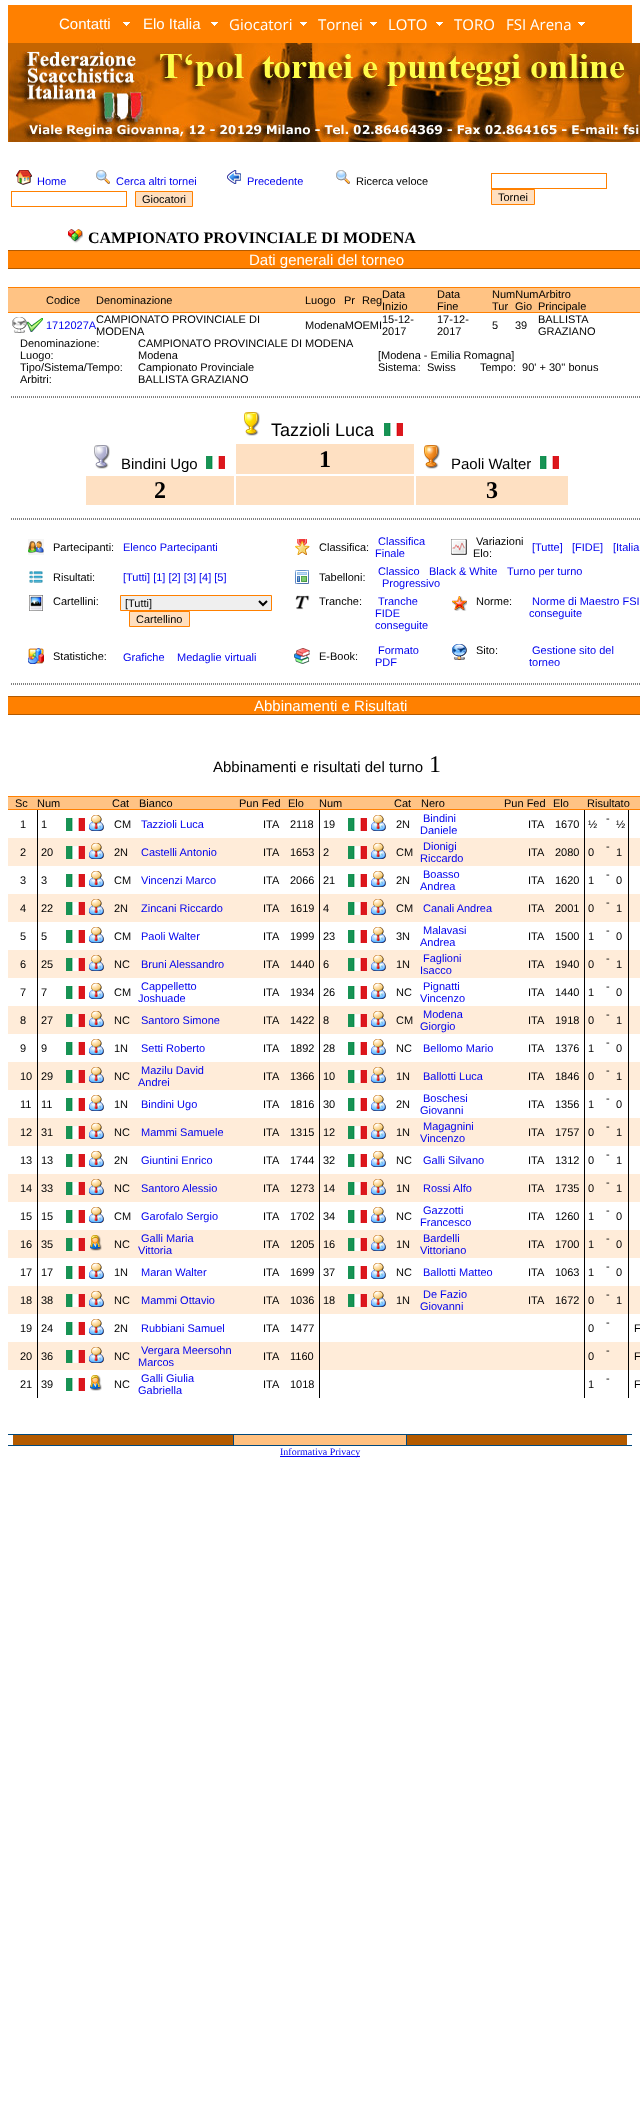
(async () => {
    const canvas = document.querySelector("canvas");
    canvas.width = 640;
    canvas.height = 2108;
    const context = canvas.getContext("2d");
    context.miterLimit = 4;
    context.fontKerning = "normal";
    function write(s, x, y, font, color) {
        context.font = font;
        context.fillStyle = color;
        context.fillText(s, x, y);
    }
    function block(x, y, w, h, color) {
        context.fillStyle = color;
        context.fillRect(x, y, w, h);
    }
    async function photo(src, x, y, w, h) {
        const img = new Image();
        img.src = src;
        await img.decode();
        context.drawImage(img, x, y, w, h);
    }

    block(0, 0, 640, 2108, "rgb(255, 255, 255)");
    block(8, 5, 624, 38, "rgb(255, 128, 0)");
    await photo("media/1.png", 123, 22, 7, 4);
    write("Contatti", 59, 29, "15px Liberation Sans", "rgb(255, 255, 255)");
    await photo("media/1.png", 211, 22, 7, 4);
    write("Elo Italia", 143, 29, "15px Liberation Sans", "rgb(255, 255, 255)");
    await photo("media/1.png", 300, 22, 7, 4);
    write("Giocatori", 229, 30, "15px Open Sans", "rgb(255, 255, 255)");
    await photo("media/1.png", 370, 22, 7, 4);
    write("Tornei", 318, 30, "15px Open Sans", "rgb(255, 255, 255)");
    await photo("media/1.png", 436, 22, 7, 4);
    write("LOTO", 388, 30, "15px Open Sans", "rgb(255, 255, 255)");
    write("TORO", 454, 30, "15px Open Sans", "rgb(255, 255, 255)");
    await photo("media/1.png", 578, 22, 7, 4);
    write("FSI Arena", 506, 30, "15px Open Sans", "rgb(255, 255, 255)");
    await photo("media/2.png", 8, 43, 632, 99);
    await photo("media/3.png", 16, 170, 16, 15);
    write("Home", 37, 185, "11px Liberation Sans", "rgb(0, 0, 238)");
    await photo("media/4.png", 96, 170, 14, 14);
    write("Cerca altri tornei", 116, 185, "11px Liberation Sans", "rgb(0, 0, 238)");
    await photo("media/5.png", 227, 170, 14, 14);
    write("Precedente", 247, 185, "11px Liberation Sans", "rgb(0, 0, 238)");
    await photo("media/4.png", 336, 170, 14, 14);
    write("Ricerca veloce", 356, 185, "11px Liberation Sans", "rgb(0, 0, 0)");
    context.strokeStyle = "rgb(255, 128, 0)";
    context.strokeRect(11.5, 191.5, 115, 15);
    context.fillStyle = "rgb(255, 223, 191)";
    context.beginPath();
    context.rect(135.5, 191.5, 57, 15);
    context.fill();
    context.stroke();
    write("Giocatori", 142, 203, "11px Liberation Sans", "rgb(0, 0, 0)");
    context.strokeRect(491.5, 173.5, 115, 15);
    context.fillStyle = "rgb(255, 223, 191)";
    context.beginPath();
    context.rect(491.5, 189.5, 43, 15);
    context.fill();
    context.stroke();
    write("Tornei", 498, 201, "11px Liberation Sans", "rgb(0, 0, 0)");
    await photo("media/6.png", 68, 229, 15, 14);
    write("CAMPIONATO PROVINCIALE DI MODENA", 88, 243, "bold 16px Liberation Serif", "rgb(0, 0, 0)");
    block(8, 251, 632, 17, "rgb(255, 128, 0)");
    block(8, 250, 632, 1, "rgb(179, 90, 0)");
    block(8, 268, 632, 1, "rgb(179, 90, 0)");
    write("Dati generali del torneo", 249, 265, "15px Liberation Sans", "rgb(255, 255, 255)");
    block(8, 287, 3, 26, "rgb(255, 195, 132)");
    block(8, 287, 35, 1, "rgb(255, 128, 0)");
    block(8, 312, 35, 1, "rgb(255, 128, 0)");
    block(43, 287, 3, 26, "rgb(255, 195, 132)");
    block(43, 287, 597, 1, "rgb(255, 128, 0)");
    block(43, 312, 597, 1, "rgb(255, 128, 0)");
    block(11, 288, 32, 24, "rgb(255, 195, 132)");
    block(46, 288, 594, 24, "rgb(255, 195, 132)");
    write("Codice", 46, 304, "11px Liberation Sans", "rgb(0, 0, 0)");
    write("Denominazione", 96, 304, "11px Liberation Sans", "rgb(0, 0, 0)");
    write("Luogo", 305, 304, "11px Liberation Sans", "rgb(0, 0, 0)");
    write("Pr", 344, 304, "11px Liberation Sans", "rgb(0, 0, 0)");
    write("Reg", 362, 304, "11px Liberation Sans", "rgb(0, 0, 0)");
    write("Data", 382, 298, "11px Liberation Sans", "rgb(0, 0, 0)");
    write("Inizio", 382, 310, "11px Liberation Sans", "rgb(0, 0, 0)");
    write("Data", 437, 298, "11px Liberation Sans", "rgb(0, 0, 0)");
    write("Fine", 437, 310, "11px Liberation Sans", "rgb(0, 0, 0)");
    write("NumNumArbitro", 492, 298, "11px Liberation Sans", "rgb(0, 0, 0)");
    write("Tur", 492, 310, "11px Liberation Sans", "rgb(0, 0, 0)");
    write("Gio", 515, 310, "11px Liberation Sans", "rgb(0, 0, 0)");
    write("Principale", 538, 310, "11px Liberation Sans", "rgb(0, 0, 0)");
    await photo("media/7.png", 12, 317, 15, 16);
    await photo("media/8.png", 27, 318, 16, 14);
    write("1712027A", 46, 329, "11px Liberation Sans", "rgb(0, 0, 238)");
    write("CAMPIONATO PROVINCIALE DI", 96, 323, "11px Liberation Sans", "rgb(0, 0, 0)");
    write("MODENA", 96, 335, "11px Liberation Sans", "rgb(0, 0, 0)");
    write("ModenaMOEMI", 305, 329, "11px Liberation Sans", "rgb(0, 0, 0)");
    write("15-12-", 382, 323, "11px Liberation Sans", "rgb(0, 0, 0)");
    write("2017", 382, 335, "11px Liberation Sans", "rgb(0, 0, 0)");
    write("17-12-", 437, 323, "11px Liberation Sans", "rgb(0, 0, 0)");
    write("2017", 437, 335, "11px Liberation Sans", "rgb(0, 0, 0)");
    write("5", 492, 329, "11px Liberation Sans", "rgb(0, 0, 0)");
    write("39", 515, 329, "11px Liberation Sans", "rgb(0, 0, 0)");
    write("BALLISTA", 538, 323, "11px Liberation Sans", "rgb(0, 0, 0)");
    write("GRAZIANO", 538, 335, "11px Liberation Sans", "rgb(0, 0, 0)");
    write("Denominazione:", 20, 347, "11px Liberation Sans", "rgb(0, 0, 0)");
    write("CAMPIONATO PROVINCIALE DI MODENA", 138, 347, "11px Liberation Sans", "rgb(0, 0, 0)");
    write("Luogo:", 20, 359, "11px Liberation Sans", "rgb(0, 0, 0)");
    write("Modena", 138, 359, "11px Liberation Sans", "rgb(0, 0, 0)");
    write("[Modena - Emilia Romagna]", 378, 359, "11px Liberation Sans", "rgb(0, 0, 0)");
    write("Tipo/Sistema/Tempo:", 20, 371, "11px Liberation Sans", "rgb(0, 0, 0)");
    write("Campionato Provinciale", 138, 371, "11px Liberation Sans", "rgb(0, 0, 0)");
    write("Sistema:  Swiss        Tempo:  90' + 30'' bonus", 378, 371, "11px Liberation Sans", "rgb(0, 0, 0)");
    write("Arbitri:", 20, 383, "11px Liberation Sans", "rgb(0, 0, 0)");
    write("BALLISTA GRAZIANO", 138, 383, "11px Liberation Sans", "rgb(0, 0, 0)");
    context.beginPath();
    context.moveTo(11, 396.5);
    context.lineTo(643, 396.5);
    context.strokeStyle = "rgb(128, 128, 128)";
    context.setLineDash([1, 1]);
    context.stroke();
    context.beginPath();
    context.moveTo(11, 397.5);
    context.lineTo(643, 397.5);
    context.stroke();
    await photo("media/9.png", 244, 412, 16, 24);
    write("Tazzioli Luca", 271, 436, "18px Liberation Sans", "rgb(0, 0, 0)");
    await photo("media/10.png", 384, 423, 19, 13);
    await photo("media/11.png", 94, 445, 16, 24);
    write("Bindini Ugo", 121, 469, "15px Liberation Sans", "rgb(0, 0, 0)");
    await photo("media/10.png", 206, 456, 19, 13);
    block(236, 444, 178, 30, "rgb(254, 224, 194)");
    write("1", 319, 467, "bold 24px Liberation Serif", "rgb(0, 0, 0)");
    await photo("media/12.png", 424, 445, 16, 24);
    write("Paoli Walter", 451, 469, "15px Liberation Sans", "rgb(0, 0, 0)");
    await photo("media/10.png", 540, 456, 19, 13);
    block(86, 476, 148, 29, "rgb(254, 224, 194)");
    write("2", 154, 498, "bold 24px Liberation Serif", "rgb(0, 0, 0)");
    block(236, 476, 178, 29, "rgb(254, 224, 194)");
    block(416, 476, 152, 29, "rgb(254, 224, 194)");
    write("3", 486, 498, "bold 24px Liberation Serif", "rgb(0, 0, 0)");
    context.beginPath();
    context.moveTo(11, 518.5);
    context.lineTo(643, 518.5);
    context.stroke();
    context.beginPath();
    context.moveTo(11, 519.5);
    context.lineTo(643, 519.5);
    context.stroke();
    await photo("media/13.png", 28, 539, 16, 16);
    write("Partecipanti:", 53, 551, "11px Liberation Sans", "rgb(0, 0, 0)");
    write("Elenco Partecipanti", 123, 551, "11px Liberation Sans", "rgb(0, 0, 238)");
    await photo("media/14.png", 295, 539, 15, 16);
    write("Classifica:", 319, 551, "11px Liberation Sans", "rgb(0, 0, 0)");
    write("Classifica", 378, 545, "11px Liberation Sans", "rgb(0, 0, 238)");
    write("Finale", 375, 557, "11px Liberation Sans", "rgb(0, 0, 238)");
    await photo("media/15.png", 451, 539, 16, 16);
    write("Variazioni", 476, 545, "11px Liberation Sans", "rgb(0, 0, 0)");
    write("Elo:", 473, 557, "11px Liberation Sans", "rgb(0, 0, 0)");
    write("[Tutte]", 532, 551, "11px Liberation Sans", "rgb(0, 0, 238)");
    write("[FIDE]", 572, 551, "11px Liberation Sans", "rgb(0, 0, 238)");
    write("[Italia", 613, 551, "11px Liberation Sans", "rgb(0, 0, 238)");
    await photo("media/16.png", 29, 571, 14, 12);
    write("Risultati:", 53, 581, "11px Liberation Sans", "rgb(0, 0, 0)");
    write("[Tutti] [1] [2] [3] [4] [5]", 123, 581, "11px Liberation Sans", "rgb(0, 0, 238)");
    await photo("media/17.png", 295, 570, 14, 14);
    write("Tabelloni:", 319, 581, "11px Liberation Sans", "rgb(0, 0, 0)");
    write("Classico", 378, 575, "11px Liberation Sans", "rgb(0, 0, 238)");
    write("Black & White", 429, 575, "11px Liberation Sans", "rgb(0, 0, 238)");
    write("Turno per turno", 507, 575, "11px Liberation Sans", "rgb(0, 0, 238)");
    write("Progressivo", 382, 587, "11px Liberation Sans", "rgb(0, 0, 238)");
    await photo("media/18.png", 29, 595, 14, 16);
    write("Cartellini:", 53, 605, "11px Liberation Sans", "rgb(0, 0, 0)");
    context.fillStyle = "rgb(239, 239, 239)";
    context.beginPath();
    context.rect(120.5, 595.5, 151, 15);
    context.fill();
    context.strokeStyle = "rgb(255, 128, 0)";
    context.setLineDash([]);
    context.stroke();
    context.beginPath();
    context.moveTo(259, 601);
    context.lineTo(263, 605);
    context.lineTo(267, 601);
    context.strokeStyle = "rgb(0, 0, 0)";
    context.lineWidth = 2;
    context.stroke();
    write("[Tutti]", 125, 607, "11px Liberation Sans", "rgb(0, 0, 0)");
    context.fillStyle = "rgb(255, 223, 191)";
    context.beginPath();
    context.rect(129.5, 611.5, 60, 15);
    context.fill();
    context.strokeStyle = "rgb(255, 128, 0)";
    context.lineWidth = 1;
    context.stroke();
    write("Cartellino", 136, 623, "11px Liberation Sans", "rgb(0, 0, 0)");
    await photo("media/19.png", 295, 595, 15, 15);
    write("Tranche:", 319, 605, "11px Liberation Sans", "rgb(0, 0, 0)");
    write("Tranche", 378, 605, "11px Liberation Sans", "rgb(0, 0, 238)");
    write("FIDE", 375, 617, "11px Liberation Sans", "rgb(0, 0, 238)");
    write("conseguite", 375, 629, "11px Liberation Sans", "rgb(0, 0, 238)");
    await photo("media/20.png", 452, 596, 15, 15);
    write("Norme:", 476, 605, "11px Liberation Sans", "rgb(0, 0, 0)");
    write("Norme di Maestro FSI", 532, 605, "11px Liberation Sans", "rgb(0, 0, 238)");
    write("conseguite", 529, 617, "11px Liberation Sans", "rgb(0, 0, 238)");
    await photo("media/21.png", 28, 648, 16, 16);
    write("Statistiche:", 53, 660, "11px Liberation Sans", "rgb(0, 0, 0)");
    write("Grafiche", 123, 661, "11px Liberation Sans", "rgb(0, 0, 238)");
    write("Medaglie virtuali", 177, 661, "11px Liberation Sans", "rgb(0, 0, 238)");
    await photo("media/22.png", 294, 648, 16, 16);
    write("E-Book:", 319, 660, "11px Liberation Sans", "rgb(0, 0, 0)");
    write("Formato", 378, 654, "11px Liberation Sans", "rgb(0, 0, 238)");
    write("PDF", 375, 666, "11px Liberation Sans", "rgb(0, 0, 238)");
    await photo("media/23.png", 452, 644, 15, 16);
    write("Sito:", 476, 654, "11px Liberation Sans", "rgb(0, 0, 0)");
    write("Gestione sito del", 532, 654, "11px Liberation Sans", "rgb(0, 0, 238)");
    write("torneo", 529, 666, "11px Liberation Sans", "rgb(0, 0, 238)");
    context.beginPath();
    context.moveTo(11, 683.5);
    context.lineTo(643, 683.5);
    context.strokeStyle = "rgb(128, 128, 128)";
    context.setLineDash([1, 1]);
    context.stroke();
    context.beginPath();
    context.moveTo(11, 684.5);
    context.lineTo(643, 684.5);
    context.stroke();
    block(8, 697, 632, 17, "rgb(255, 128, 0)");
    block(8, 696, 632, 1, "rgb(179, 90, 0)");
    block(8, 714, 632, 1, "rgb(179, 90, 0)");
    write("Abbinamenti e Risultati", 254, 711, "15px Liberation Sans", "rgb(255, 255, 255)");
    write("Abbinamenti e risultati del turno", 213, 772, "15px Liberation Sans", "rgb(0, 0, 0)");
    write("1", 429, 772, "24px Liberation Serif", "rgb(0, 0, 0)");
    block(8, 796, 7, 14, "rgb(255, 195, 132)");
    block(8, 796, 632, 1, "rgb(255, 128, 0)");
    block(8, 809, 632, 1, "rgb(255, 128, 0)");
    block(15, 797, 625, 12, "rgb(255, 195, 132)");
    write("Sc", 15, 807, "11px Liberation Sans", "rgb(0, 0, 0)");
    write("Num", 37, 807, "11px Liberation Sans", "rgb(0, 0, 0)");
    write("Cat", 112, 807, "11px Liberation Sans", "rgb(0, 0, 0)");
    write("Bianco", 139, 807, "11px Liberation Sans", "rgb(0, 0, 0)");
    write("Pun Fed", 239, 807, "11px Liberation Sans", "rgb(0, 0, 0)");
    write("Elo", 288, 807, "11px Liberation Sans", "rgb(0, 0, 0)");
    write("Num", 319, 807, "11px Liberation Sans", "rgb(0, 0, 0)");
    write("Cat", 394, 807, "11px Liberation Sans", "rgb(0, 0, 0)");
    write("Nero", 421, 807, "11px Liberation Sans", "rgb(0, 0, 0)");
    write("Pun Fed", 504, 807, "11px Liberation Sans", "rgb(0, 0, 0)");
    write("Elo", 553, 807, "11px Liberation Sans", "rgb(0, 0, 0)");
    write("Risultato", 587, 807, "11px Liberation Sans", "rgb(0, 0, 0)");
    await photo("media/10.png", 66, 818, 19, 13);
    await photo("media/24.png", 89, 815, 15, 16);
    await photo("media/10.png", 348, 818, 19, 13);
    await photo("media/24.png", 371, 815, 15, 16);
    write("Bindini", 423, 822, "11px Liberation Sans", "rgb(0, 0, 238)");
    write("Daniele", 420, 834, "11px Liberation Sans", "rgb(0, 0, 238)");
    write("-", 606, 822, "11px Liberation Sans", "rgb(0, 0, 0)");
    write("1", 20, 828, "11px Liberation Sans", "rgb(0, 0, 0)");
    block(37, 810, 1, 588, "rgb(0, 0, 0)");
    write("1", 41, 828, "11px Liberation Sans", "rgb(0, 0, 0)");
    write("CM", 114, 828, "11px Liberation Sans", "rgb(0, 0, 0)");
    write("Tazzioli Luca", 141, 828, "11px Liberation Sans", "rgb(0, 0, 238)");
    write("ITA", 263, 828, "11px Liberation Sans", "rgb(0, 0, 0)");
    write("2118", 290, 828, "11px Liberation Sans", "rgb(0, 0, 0)");
    block(319, 810, 1, 588, "rgb(0, 0, 0)");
    write("19", 323, 828, "11px Liberation Sans", "rgb(0, 0, 0)");
    write("2N", 396, 828, "11px Liberation Sans", "rgb(0, 0, 0)");
    write("ITA", 528, 828, "11px Liberation Sans", "rgb(0, 0, 0)");
    write("1670", 555, 828, "11px Liberation Sans", "rgb(0, 0, 0)");
    block(584, 810, 1, 588, "rgb(0, 0, 0)");
    write("½", 588, 828, "11px Liberation Sans", "rgb(0, 0, 0)");
    block(628, 810, 1, 588, "rgb(0, 0, 0)");
    write("½", 616, 828, "11px Liberation Sans", "rgb(0, 0, 0)");
    block(8, 838, 29, 28, "rgb(255, 236, 217)");
    block(38, 838, 281, 28, "rgb(255, 236, 217)");
    await photo("media/10.png", 66, 846, 19, 13);
    await photo("media/25.png", 89, 843, 15, 16);
    block(320, 838, 264, 28, "rgb(255, 236, 217)");
    await photo("media/10.png", 348, 846, 19, 13);
    await photo("media/25.png", 371, 843, 15, 16);
    write("Dionigi", 423, 850, "11px Liberation Sans", "rgb(0, 0, 238)");
    write("Riccardo", 420, 862, "11px Liberation Sans", "rgb(0, 0, 238)");
    block(585, 838, 43, 28, "rgb(255, 236, 217)");
    write("-", 606, 850, "11px Liberation Sans", "rgb(0, 0, 0)");
    block(629, 838, 11, 28, "rgb(255, 236, 217)");
    write("2", 20, 856, "11px Liberation Sans", "rgb(0, 0, 0)");
    write("20", 41, 856, "11px Liberation Sans", "rgb(0, 0, 0)");
    write("2N", 114, 856, "11px Liberation Sans", "rgb(0, 0, 0)");
    write("Castelli Antonio", 141, 856, "11px Liberation Sans", "rgb(0, 0, 238)");
    write("ITA", 263, 856, "11px Liberation Sans", "rgb(0, 0, 0)");
    write("1653", 290, 856, "11px Liberation Sans", "rgb(0, 0, 0)");
    write("2", 323, 856, "11px Liberation Sans", "rgb(0, 0, 0)");
    write("CM", 396, 856, "11px Liberation Sans", "rgb(0, 0, 0)");
    write("ITA", 528, 856, "11px Liberation Sans", "rgb(0, 0, 0)");
    write("2080", 555, 856, "11px Liberation Sans", "rgb(0, 0, 0)");
    write("0", 588, 856, "11px Liberation Sans", "rgb(0, 0, 0)");
    write("1", 616, 856, "11px Liberation Sans", "rgb(0, 0, 0)");
    await photo("media/10.png", 66, 874, 19, 13);
    await photo("media/24.png", 89, 871, 15, 16);
    await photo("media/10.png", 348, 874, 19, 13);
    await photo("media/24.png", 371, 871, 15, 16);
    write("Boasso", 423, 878, "11px Liberation Sans", "rgb(0, 0, 238)");
    write("Andrea", 420, 890, "11px Liberation Sans", "rgb(0, 0, 238)");
    write("-", 606, 878, "11px Liberation Sans", "rgb(0, 0, 0)");
    write("3", 20, 884, "11px Liberation Sans", "rgb(0, 0, 0)");
    write("3", 41, 884, "11px Liberation Sans", "rgb(0, 0, 0)");
    write("CM", 114, 884, "11px Liberation Sans", "rgb(0, 0, 0)");
    write("Vincenzi Marco", 141, 884, "11px Liberation Sans", "rgb(0, 0, 238)");
    write("ITA", 263, 884, "11px Liberation Sans", "rgb(0, 0, 0)");
    write("2066", 290, 884, "11px Liberation Sans", "rgb(0, 0, 0)");
    write("21", 323, 884, "11px Liberation Sans", "rgb(0, 0, 0)");
    write("2N", 396, 884, "11px Liberation Sans", "rgb(0, 0, 0)");
    write("ITA", 528, 884, "11px Liberation Sans", "rgb(0, 0, 0)");
    write("1620", 555, 884, "11px Liberation Sans", "rgb(0, 0, 0)");
    write("1", 588, 884, "11px Liberation Sans", "rgb(0, 0, 0)");
    write("0", 616, 884, "11px Liberation Sans", "rgb(0, 0, 0)");
    block(8, 894, 29, 28, "rgb(255, 236, 217)");
    block(38, 894, 281, 28, "rgb(255, 236, 217)");
    await photo("media/10.png", 66, 902, 19, 13);
    await photo("media/25.png", 89, 899, 15, 16);
    block(320, 894, 264, 28, "rgb(255, 236, 217)");
    await photo("media/10.png", 348, 902, 19, 13);
    await photo("media/25.png", 371, 899, 15, 16);
    block(585, 894, 43, 28, "rgb(255, 236, 217)");
    write("-", 606, 906, "11px Liberation Sans", "rgb(0, 0, 0)");
    block(629, 894, 11, 28, "rgb(255, 236, 217)");
    write("4", 20, 912, "11px Liberation Sans", "rgb(0, 0, 0)");
    write("22", 41, 912, "11px Liberation Sans", "rgb(0, 0, 0)");
    write("2N", 114, 912, "11px Liberation Sans", "rgb(0, 0, 0)");
    write("Zincani Riccardo", 141, 912, "11px Liberation Sans", "rgb(0, 0, 238)");
    write("ITA", 263, 912, "11px Liberation Sans", "rgb(0, 0, 0)");
    write("1619", 290, 912, "11px Liberation Sans", "rgb(0, 0, 0)");
    write("4", 323, 912, "11px Liberation Sans", "rgb(0, 0, 0)");
    write("CM", 396, 912, "11px Liberation Sans", "rgb(0, 0, 0)");
    write("Canali Andrea", 423, 912, "11px Liberation Sans", "rgb(0, 0, 238)");
    write("ITA", 528, 912, "11px Liberation Sans", "rgb(0, 0, 0)");
    write("2001", 555, 912, "11px Liberation Sans", "rgb(0, 0, 0)");
    write("0", 588, 912, "11px Liberation Sans", "rgb(0, 0, 0)");
    write("1", 616, 912, "11px Liberation Sans", "rgb(0, 0, 0)");
    await photo("media/10.png", 66, 930, 19, 13);
    await photo("media/24.png", 89, 927, 15, 16);
    await photo("media/10.png", 348, 930, 19, 13);
    await photo("media/24.png", 371, 927, 15, 16);
    write("Malavasi", 423, 934, "11px Liberation Sans", "rgb(0, 0, 238)");
    write("Andrea", 420, 946, "11px Liberation Sans", "rgb(0, 0, 238)");
    write("-", 606, 934, "11px Liberation Sans", "rgb(0, 0, 0)");
    write("5", 20, 940, "11px Liberation Sans", "rgb(0, 0, 0)");
    write("5", 41, 940, "11px Liberation Sans", "rgb(0, 0, 0)");
    write("CM", 114, 940, "11px Liberation Sans", "rgb(0, 0, 0)");
    write("Paoli Walter", 141, 940, "11px Liberation Sans", "rgb(0, 0, 238)");
    write("ITA", 263, 940, "11px Liberation Sans", "rgb(0, 0, 0)");
    write("1999", 290, 940, "11px Liberation Sans", "rgb(0, 0, 0)");
    write("23", 323, 940, "11px Liberation Sans", "rgb(0, 0, 0)");
    write("3N", 396, 940, "11px Liberation Sans", "rgb(0, 0, 0)");
    write("ITA", 528, 940, "11px Liberation Sans", "rgb(0, 0, 0)");
    write("1500", 555, 940, "11px Liberation Sans", "rgb(0, 0, 0)");
    write("1", 588, 940, "11px Liberation Sans", "rgb(0, 0, 0)");
    write("0", 616, 940, "11px Liberation Sans", "rgb(0, 0, 0)");
    block(8, 950, 29, 28, "rgb(255, 236, 217)");
    block(38, 950, 281, 28, "rgb(255, 236, 217)");
    await photo("media/10.png", 66, 958, 19, 13);
    await photo("media/25.png", 89, 955, 15, 16);
    block(320, 950, 264, 28, "rgb(255, 236, 217)");
    await photo("media/10.png", 348, 958, 19, 13);
    await photo("media/25.png", 371, 955, 15, 16);
    write("Faglioni", 423, 962, "11px Liberation Sans", "rgb(0, 0, 238)");
    write("Isacco", 420, 974, "11px Liberation Sans", "rgb(0, 0, 238)");
    block(585, 950, 43, 28, "rgb(255, 236, 217)");
    write("-", 606, 962, "11px Liberation Sans", "rgb(0, 0, 0)");
    block(629, 950, 11, 28, "rgb(255, 236, 217)");
    write("6", 20, 968, "11px Liberation Sans", "rgb(0, 0, 0)");
    write("25", 41, 968, "11px Liberation Sans", "rgb(0, 0, 0)");
    write("NC", 114, 968, "11px Liberation Sans", "rgb(0, 0, 0)");
    write("Bruni Alessandro", 141, 968, "11px Liberation Sans", "rgb(0, 0, 238)");
    write("ITA", 263, 968, "11px Liberation Sans", "rgb(0, 0, 0)");
    write("1440", 290, 968, "11px Liberation Sans", "rgb(0, 0, 0)");
    write("6", 323, 968, "11px Liberation Sans", "rgb(0, 0, 0)");
    write("1N", 396, 968, "11px Liberation Sans", "rgb(0, 0, 0)");
    write("ITA", 528, 968, "11px Liberation Sans", "rgb(0, 0, 0)");
    write("1940", 555, 968, "11px Liberation Sans", "rgb(0, 0, 0)");
    write("0", 588, 968, "11px Liberation Sans", "rgb(0, 0, 0)");
    write("1", 616, 968, "11px Liberation Sans", "rgb(0, 0, 0)");
    await photo("media/10.png", 66, 986, 19, 13);
    await photo("media/24.png", 89, 983, 15, 16);
    write("Cappelletto", 141, 990, "11px Liberation Sans", "rgb(0, 0, 238)");
    write("Joshuade", 138, 1002, "11px Liberation Sans", "rgb(0, 0, 238)");
    await photo("media/10.png", 348, 986, 19, 13);
    await photo("media/24.png", 371, 983, 15, 16);
    write("Pignatti", 423, 990, "11px Liberation Sans", "rgb(0, 0, 238)");
    write("Vincenzo", 420, 1002, "11px Liberation Sans", "rgb(0, 0, 238)");
    write("-", 606, 990, "11px Liberation Sans", "rgb(0, 0, 0)");
    write("7", 20, 996, "11px Liberation Sans", "rgb(0, 0, 0)");
    write("7", 41, 996, "11px Liberation Sans", "rgb(0, 0, 0)");
    write("CM", 114, 996, "11px Liberation Sans", "rgb(0, 0, 0)");
    write("ITA", 263, 996, "11px Liberation Sans", "rgb(0, 0, 0)");
    write("1934", 290, 996, "11px Liberation Sans", "rgb(0, 0, 0)");
    write("26", 323, 996, "11px Liberation Sans", "rgb(0, 0, 0)");
    write("NC", 396, 996, "11px Liberation Sans", "rgb(0, 0, 0)");
    write("ITA", 528, 996, "11px Liberation Sans", "rgb(0, 0, 0)");
    write("1440", 555, 996, "11px Liberation Sans", "rgb(0, 0, 0)");
    write("1", 588, 996, "11px Liberation Sans", "rgb(0, 0, 0)");
    write("0", 616, 996, "11px Liberation Sans", "rgb(0, 0, 0)");
    block(8, 1006, 29, 28, "rgb(255, 236, 217)");
    block(38, 1006, 281, 28, "rgb(255, 236, 217)");
    await photo("media/10.png", 66, 1014, 19, 13);
    await photo("media/25.png", 89, 1011, 15, 16);
    block(320, 1006, 264, 28, "rgb(255, 236, 217)");
    await photo("media/10.png", 348, 1014, 19, 13);
    await photo("media/25.png", 371, 1011, 15, 16);
    write("Modena", 423, 1018, "11px Liberation Sans", "rgb(0, 0, 238)");
    write("Giorgio", 420, 1030, "11px Liberation Sans", "rgb(0, 0, 238)");
    block(585, 1006, 43, 28, "rgb(255, 236, 217)");
    write("-", 606, 1018, "11px Liberation Sans", "rgb(0, 0, 0)");
    block(629, 1006, 11, 28, "rgb(255, 236, 217)");
    write("8", 20, 1024, "11px Liberation Sans", "rgb(0, 0, 0)");
    write("27", 41, 1024, "11px Liberation Sans", "rgb(0, 0, 0)");
    write("NC", 114, 1024, "11px Liberation Sans", "rgb(0, 0, 0)");
    write("Santoro Simone", 141, 1024, "11px Liberation Sans", "rgb(0, 0, 238)");
    write("ITA", 263, 1024, "11px Liberation Sans", "rgb(0, 0, 0)");
    write("1422", 290, 1024, "11px Liberation Sans", "rgb(0, 0, 0)");
    write("8", 323, 1024, "11px Liberation Sans", "rgb(0, 0, 0)");
    write("CM", 396, 1024, "11px Liberation Sans", "rgb(0, 0, 0)");
    write("ITA", 528, 1024, "11px Liberation Sans", "rgb(0, 0, 0)");
    write("1918", 555, 1024, "11px Liberation Sans", "rgb(0, 0, 0)");
    write("0", 588, 1024, "11px Liberation Sans", "rgb(0, 0, 0)");
    write("1", 616, 1024, "11px Liberation Sans", "rgb(0, 0, 0)");
    await photo("media/10.png", 66, 1042, 19, 13);
    await photo("media/24.png", 89, 1039, 15, 16);
    await photo("media/10.png", 348, 1042, 19, 13);
    await photo("media/24.png", 371, 1039, 15, 16);
    write("-", 606, 1046, "11px Liberation Sans", "rgb(0, 0, 0)");
    write("9", 20, 1052, "11px Liberation Sans", "rgb(0, 0, 0)");
    write("9", 41, 1052, "11px Liberation Sans", "rgb(0, 0, 0)");
    write("1N", 114, 1052, "11px Liberation Sans", "rgb(0, 0, 0)");
    write("Setti Roberto", 141, 1052, "11px Liberation Sans", "rgb(0, 0, 238)");
    write("ITA", 263, 1052, "11px Liberation Sans", "rgb(0, 0, 0)");
    write("1892", 290, 1052, "11px Liberation Sans", "rgb(0, 0, 0)");
    write("28", 323, 1052, "11px Liberation Sans", "rgb(0, 0, 0)");
    write("NC", 396, 1052, "11px Liberation Sans", "rgb(0, 0, 0)");
    write("Bellomo Mario", 423, 1052, "11px Liberation Sans", "rgb(0, 0, 238)");
    write("ITA", 528, 1052, "11px Liberation Sans", "rgb(0, 0, 0)");
    write("1376", 555, 1052, "11px Liberation Sans", "rgb(0, 0, 0)");
    write("1", 588, 1052, "11px Liberation Sans", "rgb(0, 0, 0)");
    write("0", 616, 1052, "11px Liberation Sans", "rgb(0, 0, 0)");
    block(8, 1062, 29, 28, "rgb(255, 236, 217)");
    block(38, 1062, 281, 28, "rgb(255, 236, 217)");
    await photo("media/10.png", 66, 1070, 19, 13);
    await photo("media/25.png", 89, 1067, 15, 16);
    write("Mazilu David", 141, 1074, "11px Liberation Sans", "rgb(0, 0, 238)");
    write("Andrei", 138, 1086, "11px Liberation Sans", "rgb(0, 0, 238)");
    block(320, 1062, 264, 28, "rgb(255, 236, 217)");
    await photo("media/10.png", 348, 1070, 19, 13);
    await photo("media/25.png", 371, 1067, 15, 16);
    block(585, 1062, 43, 28, "rgb(255, 236, 217)");
    write("-", 606, 1074, "11px Liberation Sans", "rgb(0, 0, 0)");
    block(629, 1062, 11, 28, "rgb(255, 236, 217)");
    write("10", 20, 1080, "11px Liberation Sans", "rgb(0, 0, 0)");
    write("29", 41, 1080, "11px Liberation Sans", "rgb(0, 0, 0)");
    write("NC", 114, 1080, "11px Liberation Sans", "rgb(0, 0, 0)");
    write("ITA", 263, 1080, "11px Liberation Sans", "rgb(0, 0, 0)");
    write("1366", 290, 1080, "11px Liberation Sans", "rgb(0, 0, 0)");
    write("10", 323, 1080, "11px Liberation Sans", "rgb(0, 0, 0)");
    write("1N", 396, 1080, "11px Liberation Sans", "rgb(0, 0, 0)");
    write("Ballotti Luca", 423, 1080, "11px Liberation Sans", "rgb(0, 0, 238)");
    write("ITA", 528, 1080, "11px Liberation Sans", "rgb(0, 0, 0)");
    write("1846", 555, 1080, "11px Liberation Sans", "rgb(0, 0, 0)");
    write("0", 588, 1080, "11px Liberation Sans", "rgb(0, 0, 0)");
    write("1", 616, 1080, "11px Liberation Sans", "rgb(0, 0, 0)");
    await photo("media/10.png", 66, 1098, 19, 13);
    await photo("media/24.png", 89, 1095, 15, 16);
    await photo("media/10.png", 348, 1098, 19, 13);
    await photo("media/24.png", 371, 1095, 15, 16);
    write("Boschesi", 423, 1102, "11px Liberation Sans", "rgb(0, 0, 238)");
    write("Giovanni", 420, 1114, "11px Liberation Sans", "rgb(0, 0, 238)");
    write("-", 606, 1102, "11px Liberation Sans", "rgb(0, 0, 0)");
    write("11", 20, 1108, "11px Liberation Sans", "rgb(0, 0, 0)");
    write("11", 41, 1108, "11px Liberation Sans", "rgb(0, 0, 0)");
    write("1N", 114, 1108, "11px Liberation Sans", "rgb(0, 0, 0)");
    write("Bindini Ugo", 141, 1108, "11px Liberation Sans", "rgb(0, 0, 238)");
    write("ITA", 263, 1108, "11px Liberation Sans", "rgb(0, 0, 0)");
    write("1816", 290, 1108, "11px Liberation Sans", "rgb(0, 0, 0)");
    write("30", 323, 1108, "11px Liberation Sans", "rgb(0, 0, 0)");
    write("2N", 396, 1108, "11px Liberation Sans", "rgb(0, 0, 0)");
    write("ITA", 528, 1108, "11px Liberation Sans", "rgb(0, 0, 0)");
    write("1356", 555, 1108, "11px Liberation Sans", "rgb(0, 0, 0)");
    write("1", 588, 1108, "11px Liberation Sans", "rgb(0, 0, 0)");
    write("0", 616, 1108, "11px Liberation Sans", "rgb(0, 0, 0)");
    block(8, 1118, 29, 28, "rgb(255, 236, 217)");
    block(38, 1118, 281, 28, "rgb(255, 236, 217)");
    await photo("media/10.png", 66, 1126, 19, 13);
    await photo("media/25.png", 89, 1123, 15, 16);
    block(320, 1118, 264, 28, "rgb(255, 236, 217)");
    await photo("media/10.png", 348, 1126, 19, 13);
    await photo("media/25.png", 371, 1123, 15, 16);
    write("Magagnini", 423, 1130, "11px Liberation Sans", "rgb(0, 0, 238)");
    write("Vincenzo", 420, 1142, "11px Liberation Sans", "rgb(0, 0, 238)");
    block(585, 1118, 43, 28, "rgb(255, 236, 217)");
    write("-", 606, 1130, "11px Liberation Sans", "rgb(0, 0, 0)");
    block(629, 1118, 11, 28, "rgb(255, 236, 217)");
    write("12", 20, 1136, "11px Liberation Sans", "rgb(0, 0, 0)");
    write("31", 41, 1136, "11px Liberation Sans", "rgb(0, 0, 0)");
    write("NC", 114, 1136, "11px Liberation Sans", "rgb(0, 0, 0)");
    write("Mammi Samuele", 141, 1136, "11px Liberation Sans", "rgb(0, 0, 238)");
    write("ITA", 263, 1136, "11px Liberation Sans", "rgb(0, 0, 0)");
    write("1315", 290, 1136, "11px Liberation Sans", "rgb(0, 0, 0)");
    write("12", 323, 1136, "11px Liberation Sans", "rgb(0, 0, 0)");
    write("1N", 396, 1136, "11px Liberation Sans", "rgb(0, 0, 0)");
    write("ITA", 528, 1136, "11px Liberation Sans", "rgb(0, 0, 0)");
    write("1757", 555, 1136, "11px Liberation Sans", "rgb(0, 0, 0)");
    write("0", 588, 1136, "11px Liberation Sans", "rgb(0, 0, 0)");
    write("1", 616, 1136, "11px Liberation Sans", "rgb(0, 0, 0)");
    await photo("media/10.png", 66, 1154, 19, 13);
    await photo("media/24.png", 89, 1151, 15, 16);
    await photo("media/10.png", 348, 1154, 19, 13);
    await photo("media/24.png", 371, 1151, 15, 16);
    write("-", 606, 1158, "11px Liberation Sans", "rgb(0, 0, 0)");
    write("13", 20, 1164, "11px Liberation Sans", "rgb(0, 0, 0)");
    write("13", 41, 1164, "11px Liberation Sans", "rgb(0, 0, 0)");
    write("2N", 114, 1164, "11px Liberation Sans", "rgb(0, 0, 0)");
    write("Giuntini Enrico", 141, 1164, "11px Liberation Sans", "rgb(0, 0, 238)");
    write("ITA", 263, 1164, "11px Liberation Sans", "rgb(0, 0, 0)");
    write("1744", 290, 1164, "11px Liberation Sans", "rgb(0, 0, 0)");
    write("32", 323, 1164, "11px Liberation Sans", "rgb(0, 0, 0)");
    write("NC", 396, 1164, "11px Liberation Sans", "rgb(0, 0, 0)");
    write("Galli Silvano", 423, 1164, "11px Liberation Sans", "rgb(0, 0, 238)");
    write("ITA", 528, 1164, "11px Liberation Sans", "rgb(0, 0, 0)");
    write("1312", 555, 1164, "11px Liberation Sans", "rgb(0, 0, 0)");
    write("0", 588, 1164, "11px Liberation Sans", "rgb(0, 0, 0)");
    write("1", 616, 1164, "11px Liberation Sans", "rgb(0, 0, 0)");
    block(8, 1174, 29, 28, "rgb(255, 236, 217)");
    block(38, 1174, 281, 28, "rgb(255, 236, 217)");
    await photo("media/10.png", 66, 1182, 19, 13);
    await photo("media/25.png", 89, 1179, 15, 16);
    block(320, 1174, 264, 28, "rgb(255, 236, 217)");
    await photo("media/10.png", 348, 1182, 19, 13);
    await photo("media/25.png", 371, 1179, 15, 16);
    block(585, 1174, 43, 28, "rgb(255, 236, 217)");
    write("-", 606, 1186, "11px Liberation Sans", "rgb(0, 0, 0)");
    block(629, 1174, 11, 28, "rgb(255, 236, 217)");
    write("14", 20, 1192, "11px Liberation Sans", "rgb(0, 0, 0)");
    write("33", 41, 1192, "11px Liberation Sans", "rgb(0, 0, 0)");
    write("NC", 114, 1192, "11px Liberation Sans", "rgb(0, 0, 0)");
    write("Santoro Alessio", 141, 1192, "11px Liberation Sans", "rgb(0, 0, 238)");
    write("ITA", 263, 1192, "11px Liberation Sans", "rgb(0, 0, 0)");
    write("1273", 290, 1192, "11px Liberation Sans", "rgb(0, 0, 0)");
    write("14", 323, 1192, "11px Liberation Sans", "rgb(0, 0, 0)");
    write("1N", 396, 1192, "11px Liberation Sans", "rgb(0, 0, 0)");
    write("Rossi Alfo", 423, 1192, "11px Liberation Sans", "rgb(0, 0, 238)");
    write("ITA", 528, 1192, "11px Liberation Sans", "rgb(0, 0, 0)");
    write("1735", 555, 1192, "11px Liberation Sans", "rgb(0, 0, 0)");
    write("0", 588, 1192, "11px Liberation Sans", "rgb(0, 0, 0)");
    write("1", 616, 1192, "11px Liberation Sans", "rgb(0, 0, 0)");
    await photo("media/10.png", 66, 1210, 19, 13);
    await photo("media/24.png", 89, 1207, 15, 16);
    await photo("media/10.png", 348, 1210, 19, 13);
    await photo("media/24.png", 371, 1207, 15, 16);
    write("Gazzotti", 423, 1214, "11px Liberation Sans", "rgb(0, 0, 238)");
    write("Francesco", 420, 1226, "11px Liberation Sans", "rgb(0, 0, 238)");
    write("-", 606, 1214, "11px Liberation Sans", "rgb(0, 0, 0)");
    write("15", 20, 1220, "11px Liberation Sans", "rgb(0, 0, 0)");
    write("15", 41, 1220, "11px Liberation Sans", "rgb(0, 0, 0)");
    write("CM", 114, 1220, "11px Liberation Sans", "rgb(0, 0, 0)");
    write("Garofalo Sergio", 141, 1220, "11px Liberation Sans", "rgb(0, 0, 238)");
    write("ITA", 263, 1220, "11px Liberation Sans", "rgb(0, 0, 0)");
    write("1702", 290, 1220, "11px Liberation Sans", "rgb(0, 0, 0)");
    write("34", 323, 1220, "11px Liberation Sans", "rgb(0, 0, 0)");
    write("NC", 396, 1220, "11px Liberation Sans", "rgb(0, 0, 0)");
    write("ITA", 528, 1220, "11px Liberation Sans", "rgb(0, 0, 0)");
    write("1260", 555, 1220, "11px Liberation Sans", "rgb(0, 0, 0)");
    write("1", 588, 1220, "11px Liberation Sans", "rgb(0, 0, 0)");
    write("0", 616, 1220, "11px Liberation Sans", "rgb(0, 0, 0)");
    block(8, 1230, 29, 28, "rgb(255, 236, 217)");
    block(38, 1230, 281, 28, "rgb(255, 236, 217)");
    await photo("media/10.png", 66, 1238, 19, 13);
    await photo("media/26.png", 90, 1235, 12, 16);
    write("Galli Maria", 141, 1242, "11px Liberation Sans", "rgb(0, 0, 238)");
    write("Vittoria", 138, 1254, "11px Liberation Sans", "rgb(0, 0, 238)");
    block(320, 1230, 264, 28, "rgb(255, 236, 217)");
    await photo("media/10.png", 348, 1238, 19, 13);
    await photo("media/25.png", 371, 1235, 15, 16);
    write("Bardelli", 423, 1242, "11px Liberation Sans", "rgb(0, 0, 238)");
    write("Vittoriano", 420, 1254, "11px Liberation Sans", "rgb(0, 0, 238)");
    block(585, 1230, 43, 28, "rgb(255, 236, 217)");
    write("-", 606, 1242, "11px Liberation Sans", "rgb(0, 0, 0)");
    block(629, 1230, 11, 28, "rgb(255, 236, 217)");
    write("16", 20, 1248, "11px Liberation Sans", "rgb(0, 0, 0)");
    write("35", 41, 1248, "11px Liberation Sans", "rgb(0, 0, 0)");
    write("NC", 114, 1248, "11px Liberation Sans", "rgb(0, 0, 0)");
    write("ITA", 263, 1248, "11px Liberation Sans", "rgb(0, 0, 0)");
    write("1205", 290, 1248, "11px Liberation Sans", "rgb(0, 0, 0)");
    write("16", 323, 1248, "11px Liberation Sans", "rgb(0, 0, 0)");
    write("1N", 396, 1248, "11px Liberation Sans", "rgb(0, 0, 0)");
    write("ITA", 528, 1248, "11px Liberation Sans", "rgb(0, 0, 0)");
    write("1700", 555, 1248, "11px Liberation Sans", "rgb(0, 0, 0)");
    write("1", 588, 1248, "11px Liberation Sans", "rgb(0, 0, 0)");
    write("0", 616, 1248, "11px Liberation Sans", "rgb(0, 0, 0)");
    await photo("media/10.png", 66, 1266, 19, 13);
    await photo("media/24.png", 89, 1263, 15, 16);
    await photo("media/10.png", 348, 1266, 19, 13);
    await photo("media/24.png", 371, 1263, 15, 16);
    write("-", 606, 1270, "11px Liberation Sans", "rgb(0, 0, 0)");
    write("17", 20, 1276, "11px Liberation Sans", "rgb(0, 0, 0)");
    write("17", 41, 1276, "11px Liberation Sans", "rgb(0, 0, 0)");
    write("1N", 114, 1276, "11px Liberation Sans", "rgb(0, 0, 0)");
    write("Maran Walter", 141, 1276, "11px Liberation Sans", "rgb(0, 0, 238)");
    write("ITA", 263, 1276, "11px Liberation Sans", "rgb(0, 0, 0)");
    write("1699", 290, 1276, "11px Liberation Sans", "rgb(0, 0, 0)");
    write("37", 323, 1276, "11px Liberation Sans", "rgb(0, 0, 0)");
    write("NC", 396, 1276, "11px Liberation Sans", "rgb(0, 0, 0)");
    write("Ballotti Matteo", 423, 1276, "11px Liberation Sans", "rgb(0, 0, 238)");
    write("ITA", 528, 1276, "11px Liberation Sans", "rgb(0, 0, 0)");
    write("1063", 555, 1276, "11px Liberation Sans", "rgb(0, 0, 0)");
    write("1", 588, 1276, "11px Liberation Sans", "rgb(0, 0, 0)");
    write("0", 616, 1276, "11px Liberation Sans", "rgb(0, 0, 0)");
    block(8, 1286, 29, 28, "rgb(255, 236, 217)");
    block(38, 1286, 281, 28, "rgb(255, 236, 217)");
    await photo("media/10.png", 66, 1294, 19, 13);
    await photo("media/25.png", 89, 1291, 15, 16);
    block(320, 1286, 264, 28, "rgb(255, 236, 217)");
    await photo("media/10.png", 348, 1294, 19, 13);
    await photo("media/25.png", 371, 1291, 15, 16);
    write("De Fazio", 423, 1298, "11px Liberation Sans", "rgb(0, 0, 238)");
    write("Giovanni", 420, 1310, "11px Liberation Sans", "rgb(0, 0, 238)");
    block(585, 1286, 43, 28, "rgb(255, 236, 217)");
    write("-", 606, 1298, "11px Liberation Sans", "rgb(0, 0, 0)");
    block(629, 1286, 11, 28, "rgb(255, 236, 217)");
    write("18", 20, 1304, "11px Liberation Sans", "rgb(0, 0, 0)");
    write("38", 41, 1304, "11px Liberation Sans", "rgb(0, 0, 0)");
    write("NC", 114, 1304, "11px Liberation Sans", "rgb(0, 0, 0)");
    write("Mammi Ottavio", 141, 1304, "11px Liberation Sans", "rgb(0, 0, 238)");
    write("ITA", 263, 1304, "11px Liberation Sans", "rgb(0, 0, 0)");
    write("1036", 290, 1304, "11px Liberation Sans", "rgb(0, 0, 0)");
    write("18", 323, 1304, "11px Liberation Sans", "rgb(0, 0, 0)");
    write("1N", 396, 1304, "11px Liberation Sans", "rgb(0, 0, 0)");
    write("ITA", 528, 1304, "11px Liberation Sans", "rgb(0, 0, 0)");
    write("1672", 555, 1304, "11px Liberation Sans", "rgb(0, 0, 0)");
    write("0", 588, 1304, "11px Liberation Sans", "rgb(0, 0, 0)");
    write("1", 616, 1304, "11px Liberation Sans", "rgb(0, 0, 0)");
    await photo("media/10.png", 66, 1322, 19, 13);
    await photo("media/24.png", 89, 1319, 15, 16);
    write("-", 606, 1326, "11px Liberation Sans", "rgb(0, 0, 0)");
    write("19", 20, 1332, "11px Liberation Sans", "rgb(0, 0, 0)");
    write("24", 41, 1332, "11px Liberation Sans", "rgb(0, 0, 0)");
    write("2N", 114, 1332, "11px Liberation Sans", "rgb(0, 0, 0)");
    write("Rubbiani Samuel", 141, 1332, "11px Liberation Sans", "rgb(0, 0, 238)");
    write("ITA", 263, 1332, "11px Liberation Sans", "rgb(0, 0, 0)");
    write("1477", 290, 1332, "11px Liberation Sans", "rgb(0, 0, 0)");
    write("0", 588, 1332, "11px Liberation Sans", "rgb(0, 0, 0)");
    write("F", 634, 1332, "11px Liberation Sans", "rgb(0, 0, 0)");
    block(8, 1342, 29, 28, "rgb(255, 236, 217)");
    block(38, 1342, 281, 28, "rgb(255, 236, 217)");
    await photo("media/10.png", 66, 1350, 19, 13);
    await photo("media/25.png", 89, 1347, 15, 16);
    write("Vergara Meersohn", 141, 1354, "11px Liberation Sans", "rgb(0, 0, 238)");
    write("Marcos", 138, 1366, "11px Liberation Sans", "rgb(0, 0, 238)");
    block(320, 1342, 264, 28, "rgb(255, 236, 217)");
    block(585, 1342, 43, 28, "rgb(255, 236, 217)");
    write("-", 606, 1354, "11px Liberation Sans", "rgb(0, 0, 0)");
    write("20", 20, 1360, "11px Liberation Sans", "rgb(0, 0, 0)");
    write("36", 41, 1360, "11px Liberation Sans", "rgb(0, 0, 0)");
    write("NC", 114, 1360, "11px Liberation Sans", "rgb(0, 0, 0)");
    write("ITA", 263, 1360, "11px Liberation Sans", "rgb(0, 0, 0)");
    write("1160", 290, 1360, "11px Liberation Sans", "rgb(0, 0, 0)");
    write("0", 588, 1360, "11px Liberation Sans", "rgb(0, 0, 0)");
    block(629, 1342, 11, 28, "rgb(255, 236, 217)");
    write("F", 634, 1360, "11px Liberation Sans", "rgb(0, 0, 0)");
    await photo("media/10.png", 66, 1378, 19, 13);
    await photo("media/27.png", 90, 1375, 12, 16);
    write("Galli Giulia", 141, 1382, "11px Liberation Sans", "rgb(0, 0, 238)");
    write("Gabriella", 138, 1394, "11px Liberation Sans", "rgb(0, 0, 238)");
    write("-", 606, 1382, "11px Liberation Sans", "rgb(0, 0, 0)");
    write("21", 20, 1388, "11px Liberation Sans", "rgb(0, 0, 0)");
    write("39", 41, 1388, "11px Liberation Sans", "rgb(0, 0, 0)");
    write("NC", 114, 1388, "11px Liberation Sans", "rgb(0, 0, 0)");
    write("ITA", 263, 1388, "11px Liberation Sans", "rgb(0, 0, 0)");
    write("1018", 290, 1388, "11px Liberation Sans", "rgb(0, 0, 0)");
    write("1", 588, 1388, "11px Liberation Sans", "rgb(0, 0, 0)");
    write("F", 634, 1388, "11px Liberation Sans", "rgb(0, 0, 0)");
    block(8, 1434, 624, 1, "rgb(0, 72, 125)");
    block(13, 1435, 220, 10, "rgb(179, 90, 0)");
    block(233, 1435, 1, 10, "rgb(0, 72, 125)");
    block(234, 1435, 172, 10, "rgb(255, 192, 128)");
    block(406, 1435, 1, 10, "rgb(0, 72, 125)");
    block(407, 1435, 220, 10, "rgb(179, 90, 0)");
    block(8, 1445, 624, 1, "rgb(0, 72, 125)");
    block(280, 1456, 80, 1, "rgb(0, 0, 238)");
    write("Informativa Privacy", 280, 1455, "10px Liberation Serif", "rgb(0, 0, 238)");
})();
